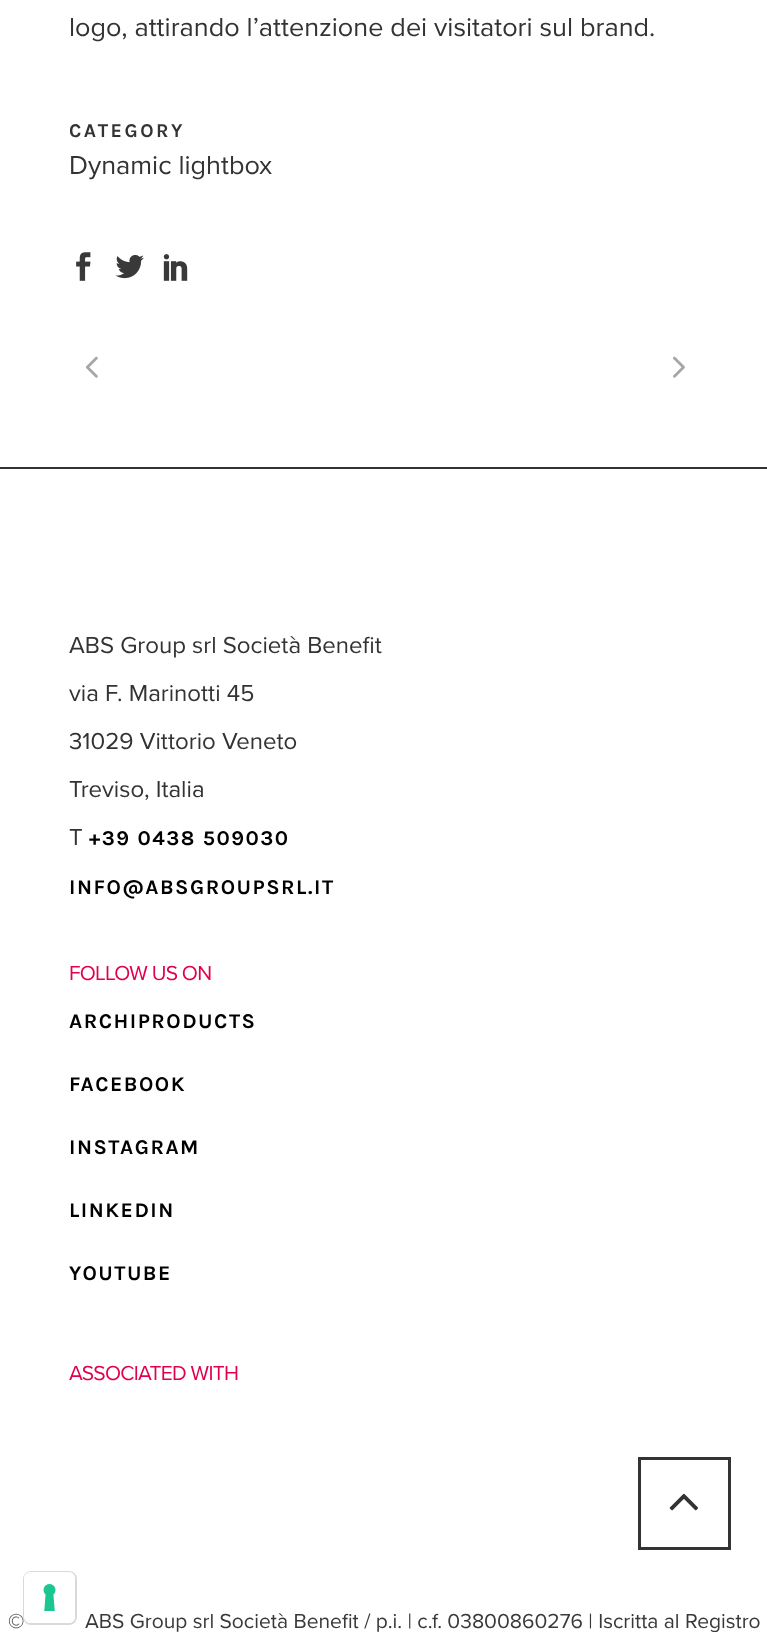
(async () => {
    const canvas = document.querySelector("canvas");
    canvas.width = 767;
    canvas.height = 1647;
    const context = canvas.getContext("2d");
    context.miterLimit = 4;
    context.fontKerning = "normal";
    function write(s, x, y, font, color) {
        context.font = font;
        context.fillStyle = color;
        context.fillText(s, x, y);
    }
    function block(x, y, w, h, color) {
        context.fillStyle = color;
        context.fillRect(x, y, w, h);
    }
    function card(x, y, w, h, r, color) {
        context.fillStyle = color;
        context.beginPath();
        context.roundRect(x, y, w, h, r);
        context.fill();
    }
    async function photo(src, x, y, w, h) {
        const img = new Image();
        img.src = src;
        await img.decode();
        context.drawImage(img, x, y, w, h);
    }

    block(0, 0, 767, 1647, "rgb(255, 255, 255)");
    write("logo, attirando l’attenzione dei visitatori sul brand.", 69, 36, "27px Proxima Nova", "rgb(51, 51, 51)");
    context.letterSpacing = "2.5px";
    write("CATEGORY", 69, 137, "bold 19.5px Karla", "rgb(51, 51, 51)");
    context.letterSpacing = "0px";
    write("Dynamic lightbox", 69, 174, "27px Proxima Nova", "rgb(51, 51, 51)");
    await photo("media/1.png", 76, 252, 15, 29);
    await photo("media/2.png", 115, 255, 29, 24);
    await photo("media/3.png", 163, 254, 25, 27);
    await photo("media/4.png", 85, 356, 13, 22);
    await photo("media/5.png", 673, 356, 12, 22);
    block(0, 467, 767, 2, "rgb(51, 51, 51)");
    write("ABS Group srl Società Benefit", 69, 653, "24px Proxima Nova", "rgb(51, 51, 51)");
    write("via F. Marinotti 45", 69, 701, "24px Proxima Nova", "rgb(51, 51, 51)");
    write("31029 Vittorio Veneto", 69, 749, "24px Proxima Nova", "rgb(51, 51, 51)");
    write("Treviso, Italia", 69, 797, "24px Proxima Nova", "rgb(51, 51, 51)");
    write("T", 69, 845, "24px Proxima Nova", "rgb(51, 51, 51)");
    context.letterSpacing = "1.5px";
    write("+39 0438 509030", 89, 845, "bold 21px Karla", "rgb(0, 0, 0)");
    write("INFO@ABSGROUPSRL.IT", 69, 894, "bold 21px Karla", "rgb(0, 0, 0)");
    context.letterSpacing = "-0.75px";
    write("FOLLOW US ON", 69, 980, "21px Proxima Nova", "rgb(227, 0, 78)");
    context.letterSpacing = "1.5px";
    write("ARCHIPRODUCTS", 69, 1028, "bold 21px Karla", "rgb(0, 0, 0)");
    write("FACEBOOK", 69, 1091, "bold 21px Karla", "rgb(0, 0, 0)");
    write("INSTAGRAM", 69, 1154, "bold 21px Karla", "rgb(0, 0, 0)");
    write("LINKEDIN", 69, 1217, "bold 21px Karla", "rgb(0, 0, 0)");
    write("YOUTUBE", 69, 1280, "bold 21px Karla", "rgb(0, 0, 0)");
    context.letterSpacing = "-0.75px";
    write("ASSOCIATED WITH", 69, 1380, "21px Proxima Nova", "rgb(227, 0, 78)");
    context.letterSpacing = "0px";
    write("©", 8, 1628, "21px Proxima Nova", "rgb(57, 57, 57)");
    write("ABS Group srl Società Benefit / p.i. | c.f. 03800860276 | Iscritta al Registro", 85, 1628, "21px Proxima Nova", "rgb(57, 57, 57)");
    context.strokeStyle = "rgb(51, 51, 51)";
    context.lineWidth = 3;
    context.strokeRect(639.5, 1458.5, 90, 90);
    await photo("media/6.png", 669, 1493, 30, 18);
    context.beginPath();
    context.roundRect(24, 1572, 52, 52, 7);
    context.strokeStyle = "rgba(0, 0, 0, 0.15)";
    context.lineWidth = 2;
    context.stroke();
    card(24, 1572, 51, 51, 6, "rgb(255, 255, 255)");
    await photo("media/7.png", 43, 1584, 13, 27);
})();
